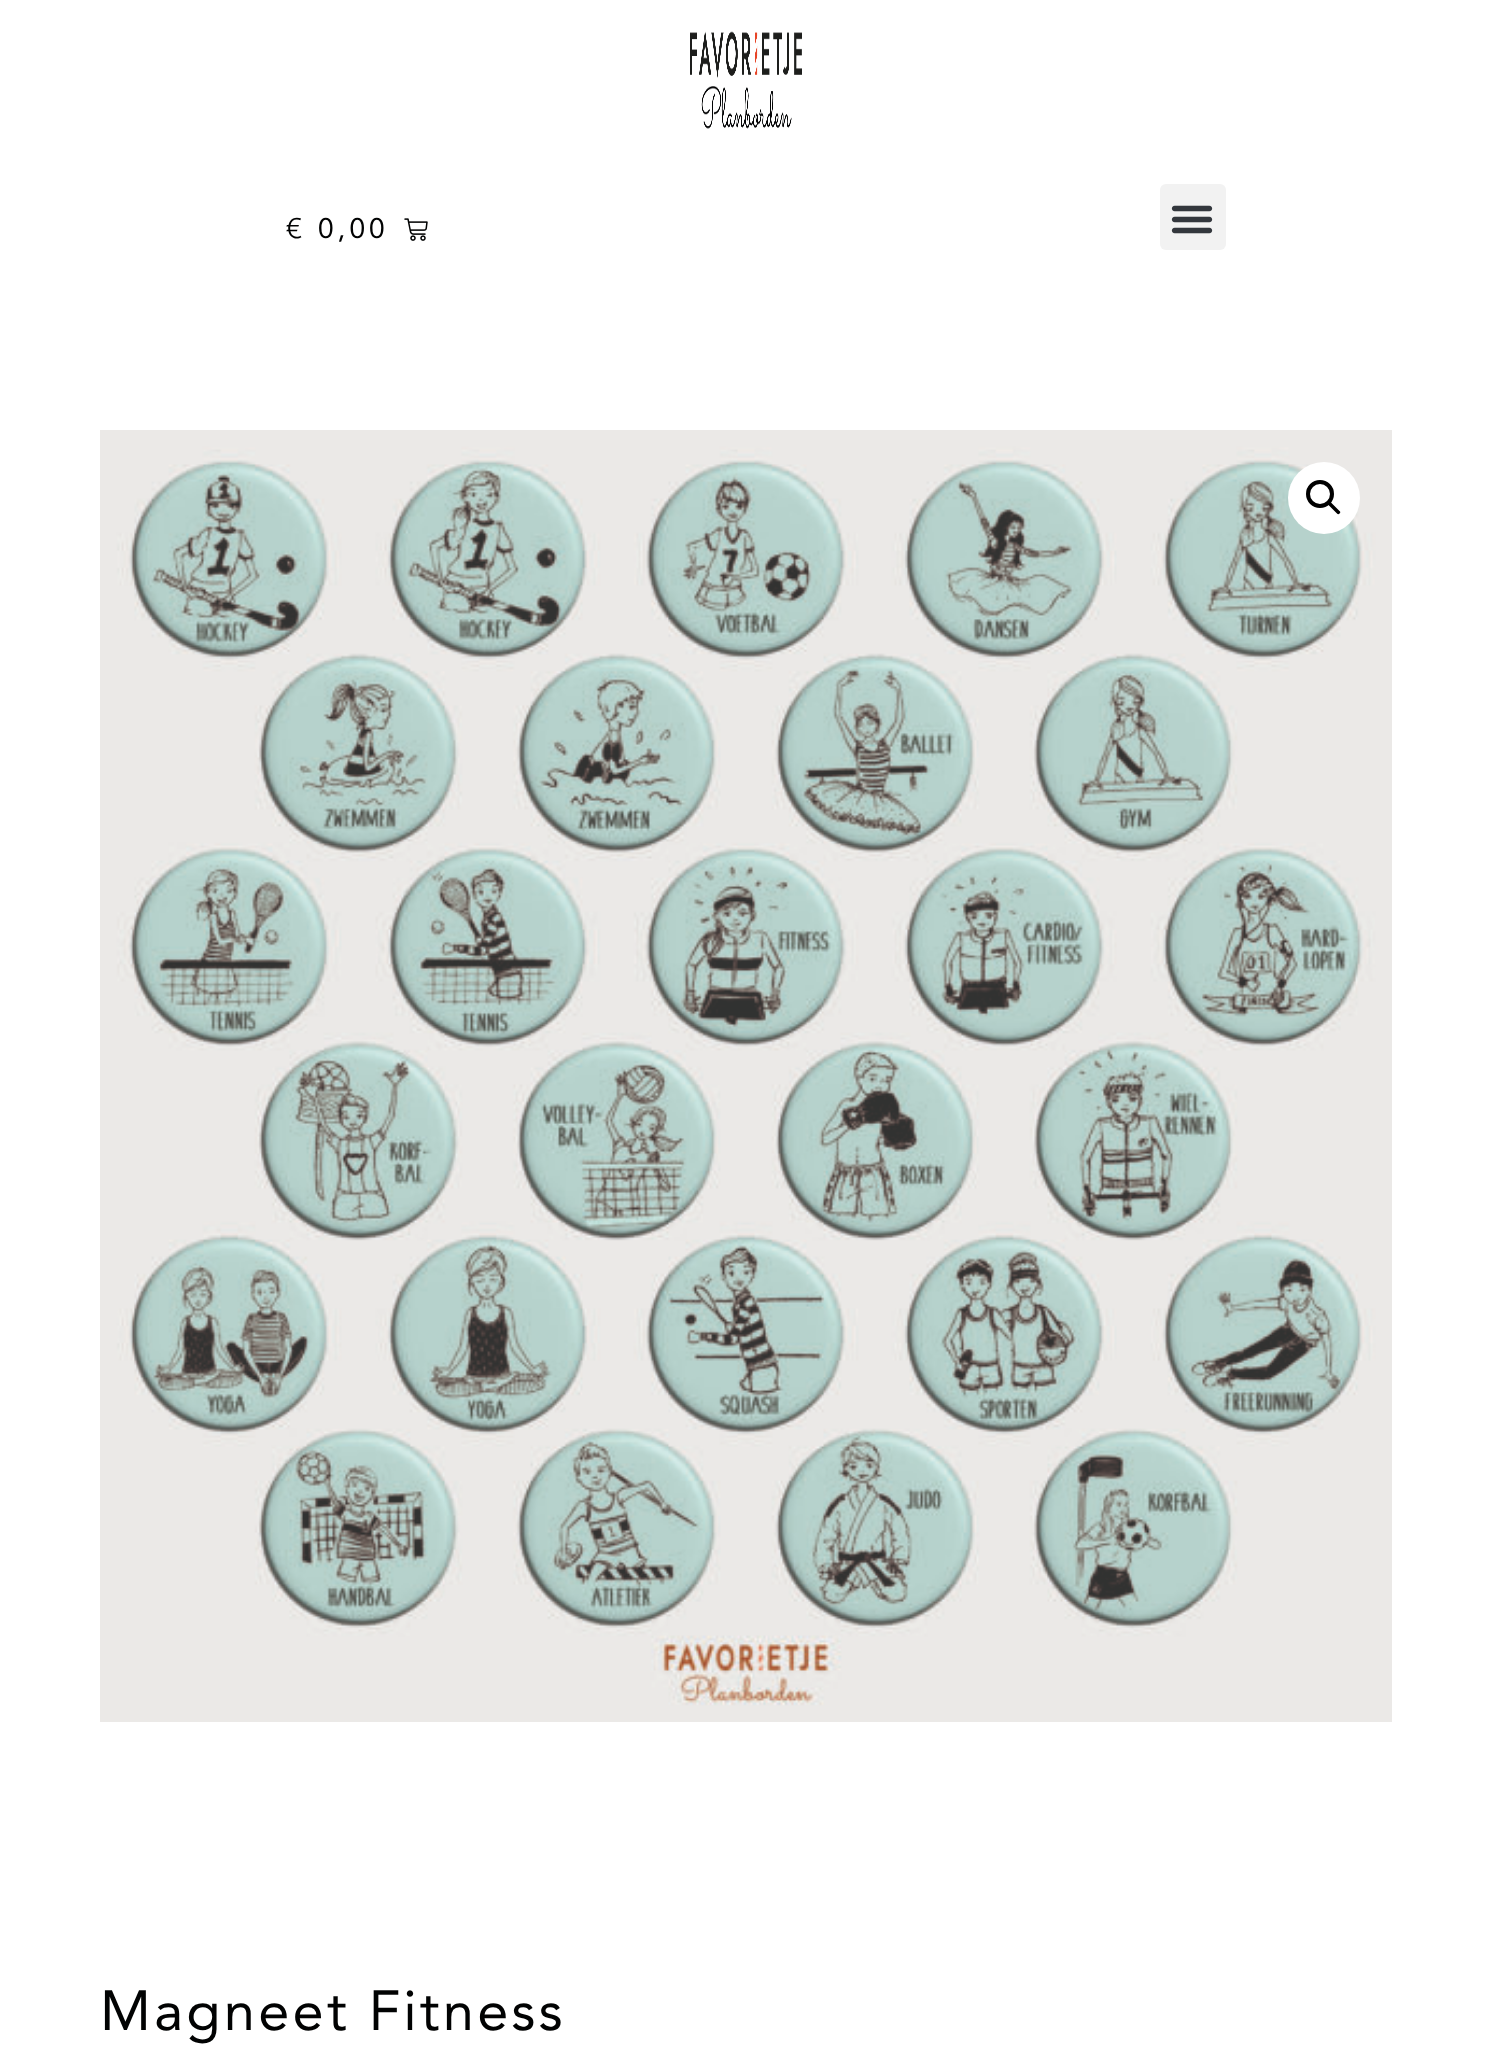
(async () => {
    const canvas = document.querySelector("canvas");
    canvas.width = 1491;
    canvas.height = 2052;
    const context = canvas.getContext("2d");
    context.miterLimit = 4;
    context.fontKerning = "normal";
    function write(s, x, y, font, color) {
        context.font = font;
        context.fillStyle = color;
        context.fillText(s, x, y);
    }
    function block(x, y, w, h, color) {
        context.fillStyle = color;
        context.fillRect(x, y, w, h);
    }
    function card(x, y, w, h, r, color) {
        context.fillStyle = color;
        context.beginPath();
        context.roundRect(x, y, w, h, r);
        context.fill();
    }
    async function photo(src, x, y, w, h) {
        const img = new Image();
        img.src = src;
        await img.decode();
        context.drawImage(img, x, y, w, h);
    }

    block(0, 0, 1491, 2052, "rgb(255, 255, 255)");
    await photo("media/1.png", 690, 31, 112, 98);
    context.letterSpacing = "4px";
    write("€ 0,00", 286, 238, "28px Avenir", "rgb(1, 2, 2)");
    await photo("media/2.png", 404, 218, 24, 23);
    card(1160, 184, 66, 66, 6, "rgb(242, 242, 242)");
    await photo("media/3.png", 1171, 205, 42, 29);
    await photo("media/4.png", 100, 430, 1292, 1292);
    context.fillStyle = "rgb(255, 255, 255)";
    context.beginPath();
    context.arc(1324, 498, 36, 0, Math.PI * 2);
    context.fill();
    context.beginPath();
    context.arc(1320, 494, 12, 0, Math.PI * 2);
    context.strokeStyle = "rgb(0, 0, 0)";
    context.lineWidth = 4;
    context.stroke();
    context.fillStyle = "rgb(0, 0, 0)";
    context.beginPath();
    context.moveTo(1328.5, 502.5);
    context.bezierCurveTo(1329, 501.5, 1330.5, 501.5, 1331, 502.5);
    context.lineTo(1339.5, 511);
    context.bezierCurveTo(1340.5, 511.5, 1340.5, 513, 1339.5, 513.5);
    context.bezierCurveTo(1339, 514.5, 1337.5, 514.5, 1337, 513.5);
    context.lineTo(1328.5, 505);
    context.bezierCurveTo(1327.5, 504.5, 1327.5, 503, 1328.5, 502.5);
    context.closePath();
    context.fill();
    context.letterSpacing = "3.25px";
    write("Magneet Fitness", 100, 2030, "56px Avenir", "rgb(1, 2, 2)");
})();
